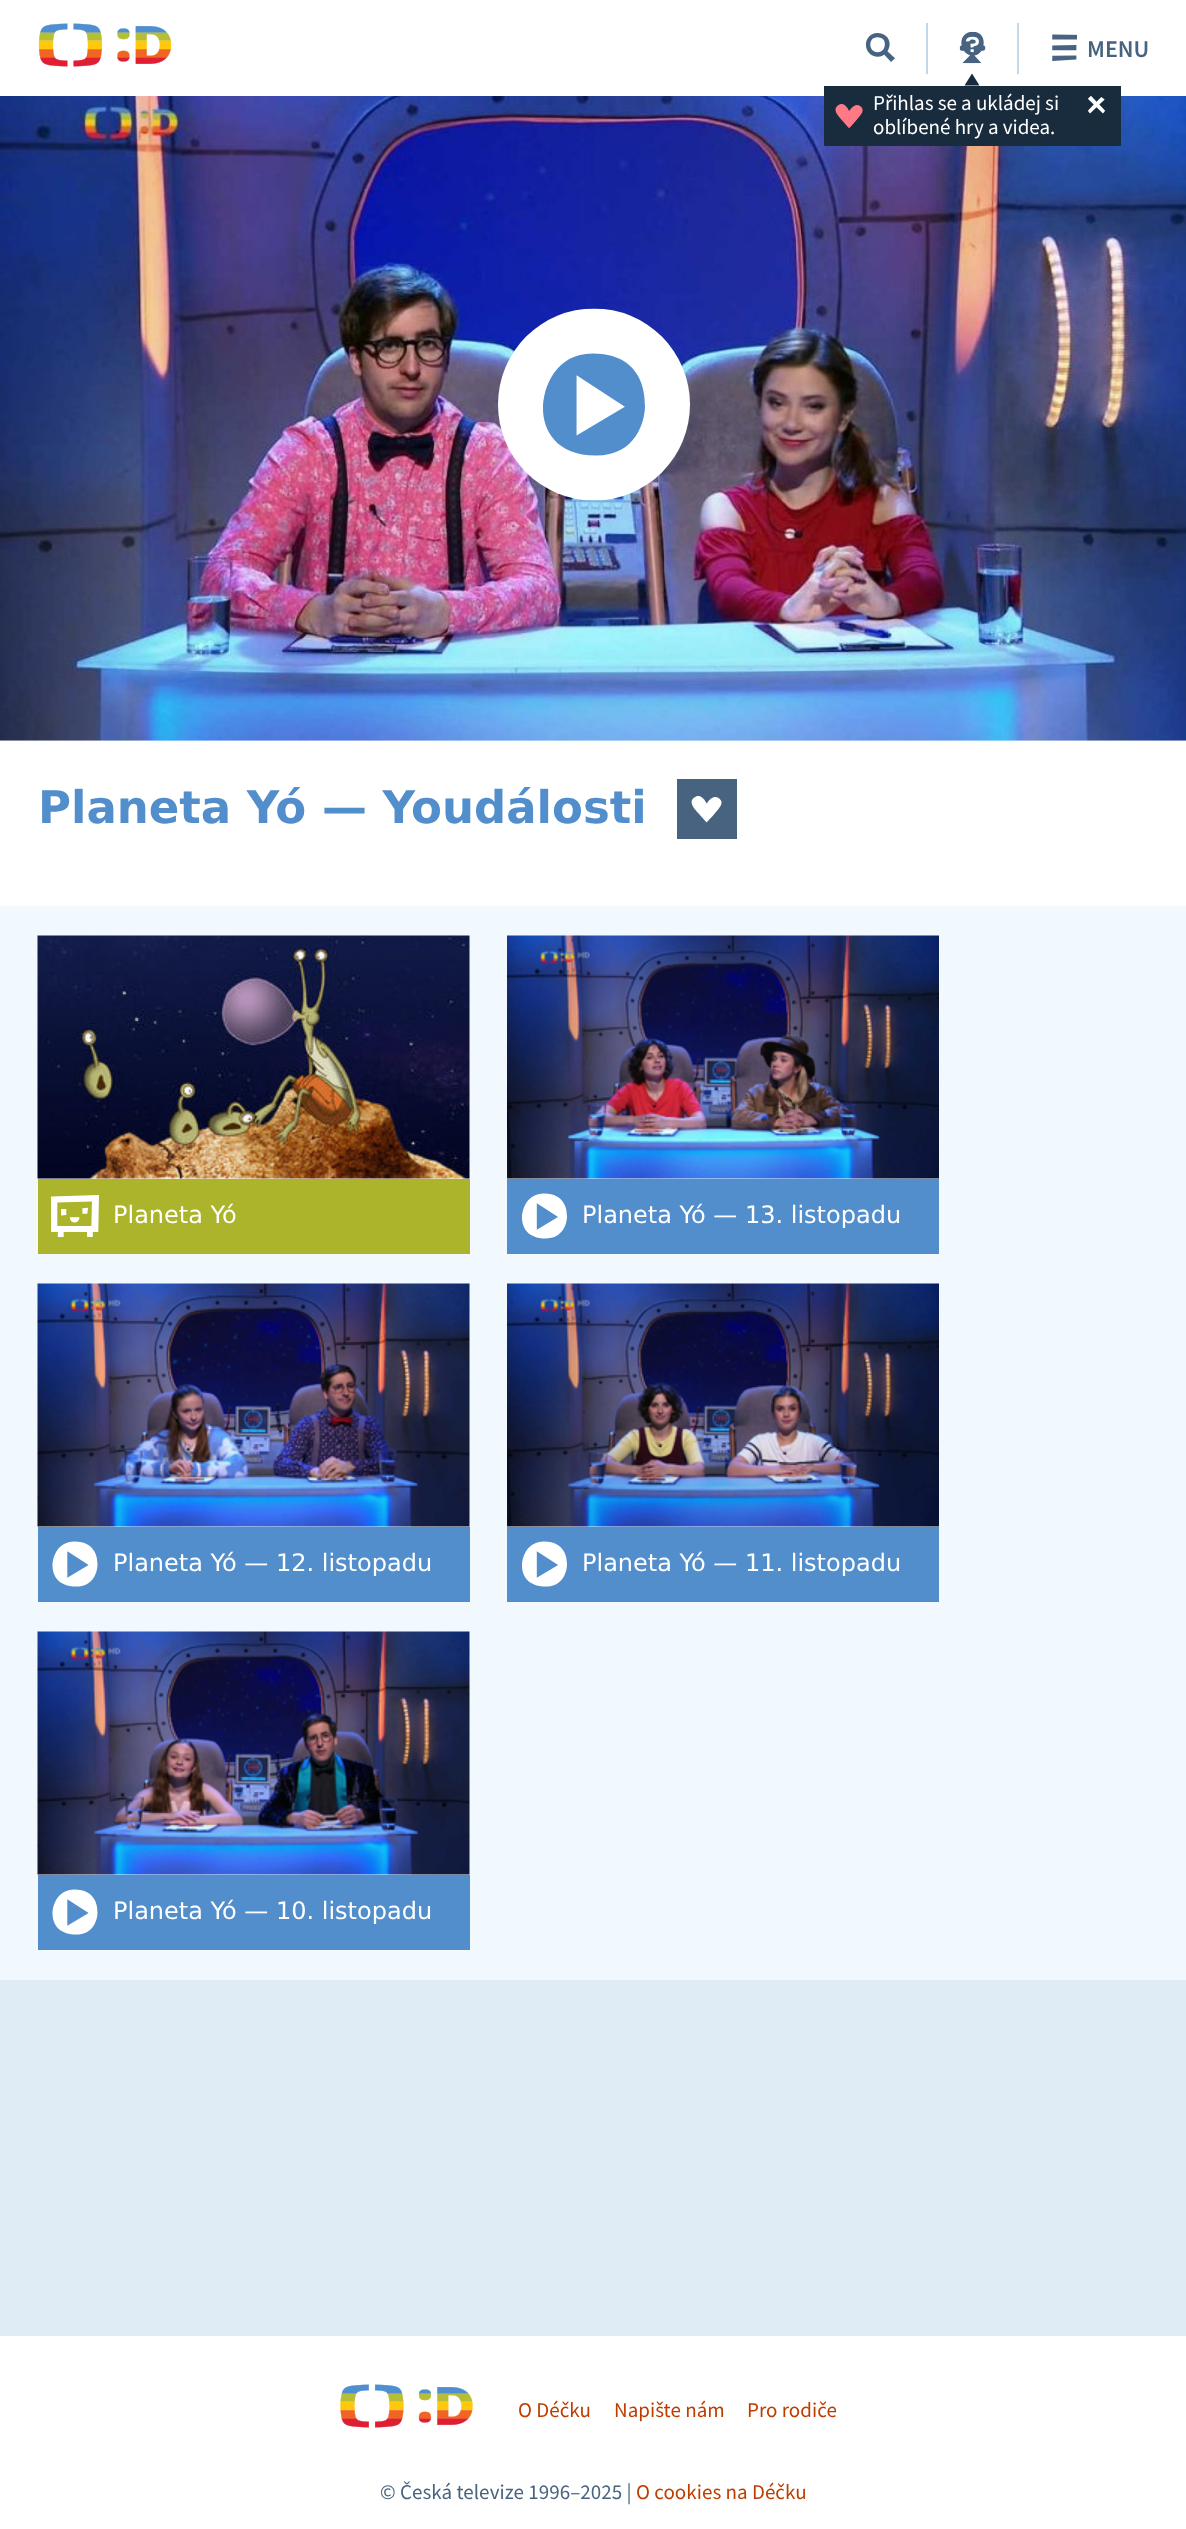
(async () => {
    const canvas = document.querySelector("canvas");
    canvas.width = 1186;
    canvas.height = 2529;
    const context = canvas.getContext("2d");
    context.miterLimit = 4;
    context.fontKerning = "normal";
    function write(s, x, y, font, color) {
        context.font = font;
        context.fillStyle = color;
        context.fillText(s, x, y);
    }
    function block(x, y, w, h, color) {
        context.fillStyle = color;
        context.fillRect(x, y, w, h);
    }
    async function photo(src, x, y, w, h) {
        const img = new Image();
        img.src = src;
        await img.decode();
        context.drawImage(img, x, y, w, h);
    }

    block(0, 0, 1186, 2529, "rgb(224, 236, 245)");
    block(0, 0, 1186, 96, "rgb(255, 255, 255)");
    await photo("media/1.png", 38, 23, 134, 44);
    await photo("media/2.png", 865, 33, 30, 29);
    block(1017, 23, 2, 51, "rgb(195, 215, 230)");
    await photo("media/3.png", 1052, 34, 25, 27);
    write("MENU", 1087, 57, "600 24px Source Sans Pro", "rgb(72, 99, 128)");
    block(926, 23, 2, 51, "rgb(195, 215, 230)");
    await photo("media/4.png", 959, 31, 27, 33);
    await photo("media/7.png", 0, 96, 1186, 645);
    block(824, 86, 297, 60, "rgb(25, 44, 61)");
    context.beginPath();
    context.moveTo(979.5, 85.5);
    context.lineTo(964.5, 85.5);
    context.lineTo(972, 73.5);
    context.closePath();
    context.fill();
    await photo("media/5.png", 835, 104, 28, 25);
    write("Přihlas se a ukládej si", 873, 110, "21px Source Sans Pro", "rgb(255, 255, 255)");
    write("oblíbené hry a videa.", 873, 134, "21px Source Sans Pro", "rgb(255, 255, 255)");
    await photo("media/6.png", 1087, 95, 19, 19);
    await photo("media/8.png", 498, 308, 192, 193);
    block(0, 741, 1186, 165, "rgb(255, 255, 255)");
    write("Planeta Yó — Youdálosti", 38, 823, "bold 45px DejaVu Sans", "rgb(81, 142, 203)");
    block(677, 779, 60, 60, "rgb(72, 99, 128)");
    await photo("media/9.png", 691, 796, 31, 27);
    block(0, 906, 1186, 1074, "rgb(241, 248, 254)");
    await photo("media/10.png", 37, 935, 433, 244);
    block(38, 1179, 432, 75, "rgb(171, 180, 42)");
    await photo("media/11.png", 51, 1195, 48, 42);
    write("Planeta Yó", 113, 1223, "24px DejaVu Sans", "rgb(255, 255, 255)");
    await photo("media/12.png", 507, 935, 432, 244);
    block(507, 1179, 432, 75, "rgb(81, 142, 203)");
    await photo("media/13.png", 522, 1193, 45, 46);
    write("Planeta Yó — 13. listopadu", 582, 1223, "24px DejaVu Sans", "rgb(255, 255, 255)");
    await photo("media/14.png", 37, 1283, 433, 244);
    block(38, 1527, 432, 75, "rgb(81, 142, 203)");
    await photo("media/15.png", 52, 1541, 46, 46);
    write("Planeta Yó — 12. listopadu", 113, 1571, "24px DejaVu Sans", "rgb(255, 255, 255)");
    await photo("media/16.png", 507, 1283, 432, 244);
    block(507, 1527, 432, 75, "rgb(81, 142, 203)");
    await photo("media/17.png", 522, 1541, 45, 46);
    write("Planeta Yó — 11. listopadu", 582, 1571, "24px DejaVu Sans", "rgb(255, 255, 255)");
    await photo("media/18.png", 37, 1631, 433, 244);
    block(38, 1875, 432, 75, "rgb(81, 142, 203)");
    await photo("media/15.png", 52, 1889, 46, 46);
    write("Planeta Yó — 10. listopadu", 113, 1919, "24px DejaVu Sans", "rgb(255, 255, 255)");
    block(0, 2336, 1186, 193, "rgb(255, 255, 255)");
    await photo("media/19.png", 340, 2384, 133, 44);
    context.letterSpacing = "0.05px";
    write("O Déčku", 518, 2417, "21px Source Sans Pro", "rgb(189, 61, 0)");
    write("Napište nám", 614, 2417, "21px Source Sans Pro", "rgb(189, 61, 0)");
    write("Pro rodiče", 747, 2417, "21px Source Sans Pro", "rgb(189, 61, 0)");
    write("© Česká televize 1996–2025 |", 380, 2499, "21px Source Sans Pro", "rgb(72, 99, 128)");
    write("O cookies na Déčku", 636, 2499, "21px Source Sans Pro", "rgb(189, 61, 0)");
})();
